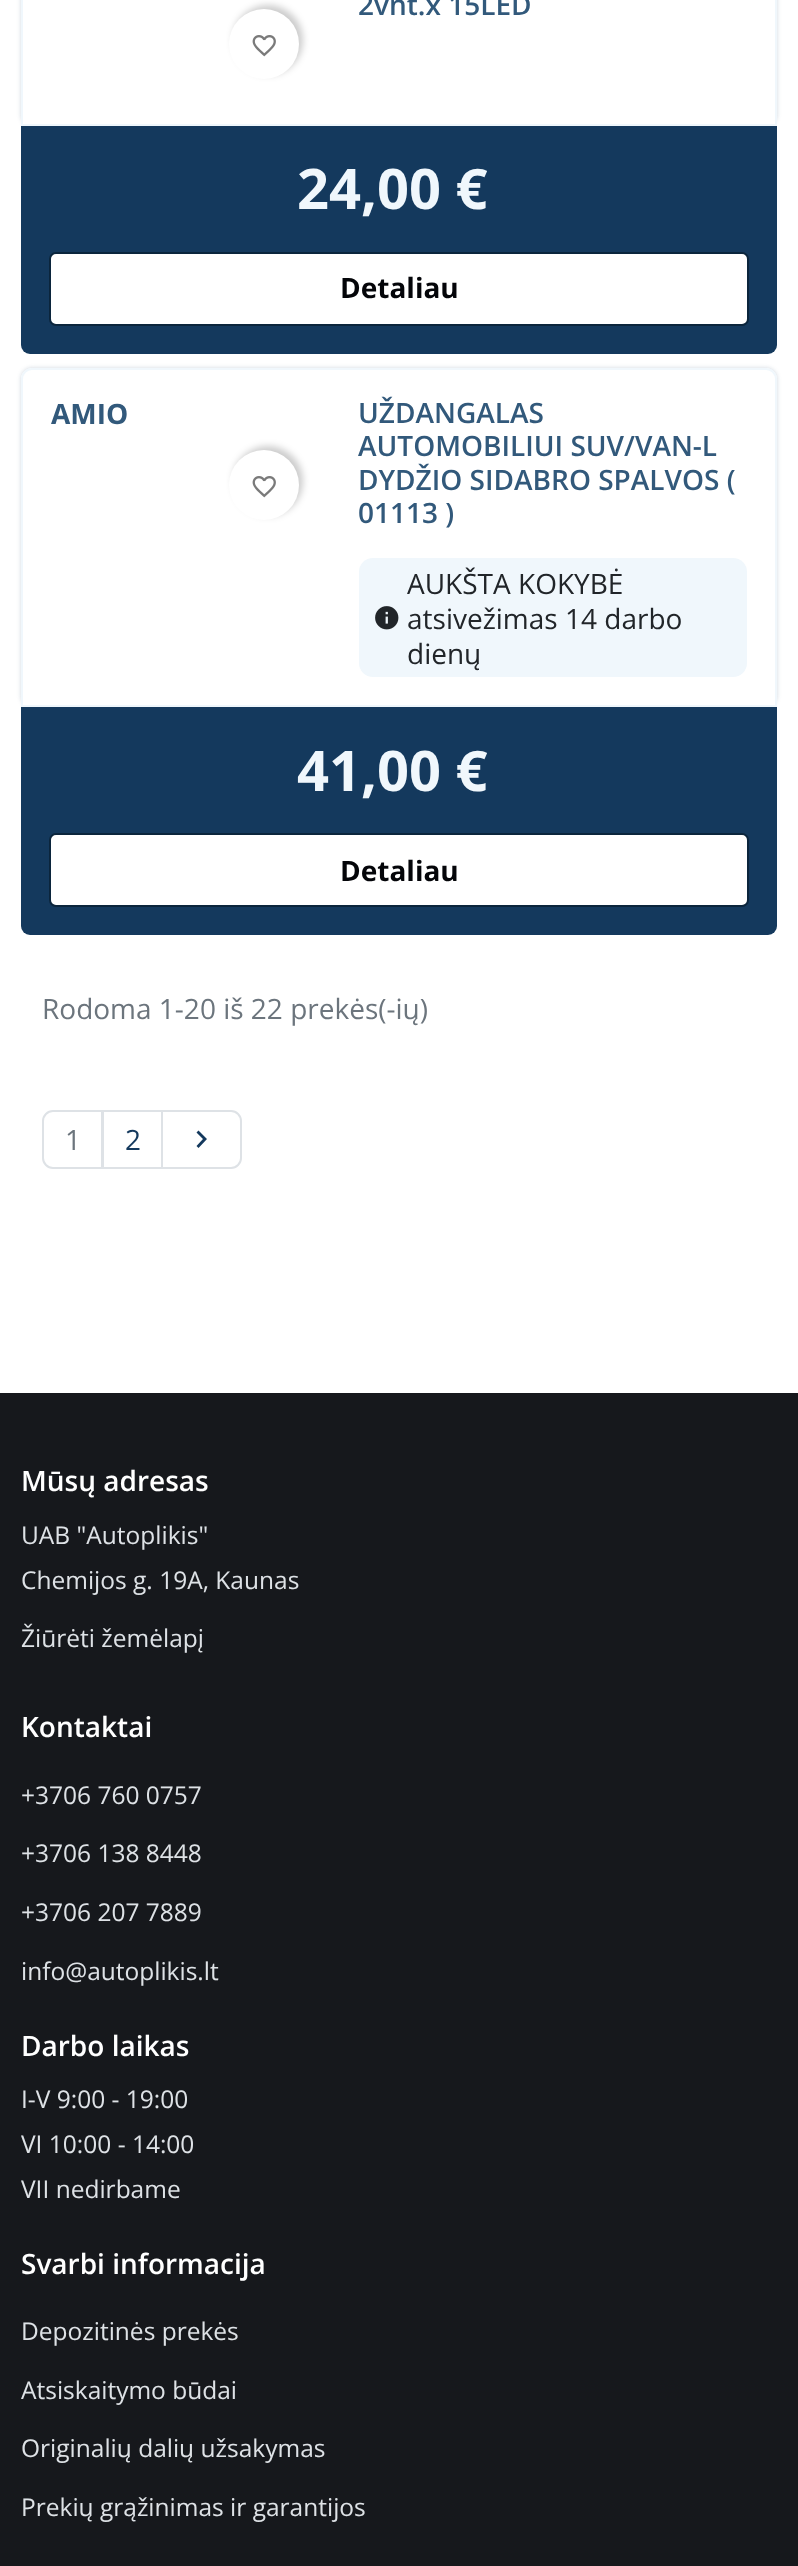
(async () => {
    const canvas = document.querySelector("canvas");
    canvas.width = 798;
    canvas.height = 2566;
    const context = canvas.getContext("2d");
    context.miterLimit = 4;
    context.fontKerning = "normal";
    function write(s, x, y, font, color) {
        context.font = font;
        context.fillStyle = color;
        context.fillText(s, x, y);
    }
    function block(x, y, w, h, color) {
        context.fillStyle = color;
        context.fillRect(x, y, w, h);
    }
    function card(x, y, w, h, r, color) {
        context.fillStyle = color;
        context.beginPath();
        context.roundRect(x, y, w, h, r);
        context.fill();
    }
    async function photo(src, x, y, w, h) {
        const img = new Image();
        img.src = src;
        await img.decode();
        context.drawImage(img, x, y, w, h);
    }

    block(0, 0, 798, 2566, "rgb(255, 255, 255)");
    context.save();
    context.beginPath();
    context.moveTo(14, 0);
    context.lineTo(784, 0);
    context.lineTo(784, 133);
    context.lineTo(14, 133);
    context.closePath();
    context.moveTo(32, -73);
    context.lineTo(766, -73);
    context.bezierCurveTo(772, -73, 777, -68, 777, -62);
    context.lineTo(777, 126);
    context.lineTo(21, 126);
    context.lineTo(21, -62);
    context.bezierCurveTo(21, -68, 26, -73, 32, -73);
    context.closePath();
    context.clip("evenodd");
    context.fillStyle = "rgba(20, 57, 93, 0.2)";
    context.filter = "blur(2px)";
    context.beginPath();
    context.roundRect(21, -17, 756, 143, 11);
    context.fill();
    context.filter = "none";
    context.restore();
    context.strokeStyle = "rgb(240, 247, 252)";
    context.lineWidth = 2;
    context.strokeRect(22, -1, 754, 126);
    context.fillStyle = "rgba(0, 0, 0, 0.2)";
    context.filter = "blur(3.5px)";
    context.beginPath();
    context.roundRect(233, 5, 70, 70, 35);
    context.fill();
    context.filter = "none";
    context.fillStyle = "rgb(255, 255, 255)";
    context.beginPath();
    context.arc(264, 44, 35, 0, Math.PI * 2);
    context.fill();
    await photo("media/1.png", 252, 35, 24, 22);
    write("2vnt.x 15LED", 358, 15, "600 28px Open Sans", "rgb(50, 89, 123)");
    context.fillStyle = "rgb(20, 57, 93)";
    context.beginPath();
    context.roundRect(21, 126, 756, 228, [0, 0, 9, 9]);
    context.fill();
    write("24,00 €", 297, 209, "bold 56px Open Sans", "rgb(240, 247, 252)");
    context.fillStyle = "rgb(255, 255, 255)";
    context.beginPath();
    context.roundRect(50, 253, 698, 72, 6);
    context.fill();
    context.strokeStyle = "rgb(11, 37, 60)";
    context.stroke();
    write("Detaliau", 340, 298, "bold 28px Open Sans", "rgb(4, 5, 9)");
    context.save();
    context.beginPath();
    context.moveTo(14, 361);
    context.lineTo(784, 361);
    context.lineTo(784, 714);
    context.lineTo(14, 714);
    context.closePath();
    context.moveTo(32, 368);
    context.lineTo(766, 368);
    context.bezierCurveTo(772, 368, 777, 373, 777, 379);
    context.lineTo(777, 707);
    context.lineTo(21, 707);
    context.lineTo(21, 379);
    context.bezierCurveTo(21, 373, 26, 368, 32, 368);
    context.closePath();
    context.clip("evenodd");
    context.fillStyle = "rgba(20, 57, 93, 0.2)";
    context.filter = "blur(2px)";
    context.beginPath();
    context.roundRect(21, 368, 756, 339, 11);
    context.fill();
    context.filter = "none";
    context.restore();
    context.beginPath();
    context.roundRect(22, 369, 754, 337, [10, 10, 0, 0]);
    context.strokeStyle = "rgb(240, 247, 252)";
    context.stroke();
    write("AMIO", 51, 424, "bold 28px Open Sans", "rgb(50, 89, 123)");
    context.fillStyle = "rgba(0, 0, 0, 0.2)";
    context.filter = "blur(3.5px)";
    context.beginPath();
    context.roundRect(233, 446, 70, 70, 35);
    context.fill();
    context.filter = "none";
    context.fillStyle = "rgb(255, 255, 255)";
    context.beginPath();
    context.arc(264, 485, 35, 0, Math.PI * 2);
    context.fill();
    await photo("media/1.png", 252, 476, 24, 22);
    write("UŽDANGALAS", 358, 423, "600 28px Open Sans", "rgb(50, 89, 123)");
    write("AUTOMOBILIUI SUV/VAN-L", 358, 456, "600 28px Open Sans", "rgb(50, 89, 123)");
    write("DYDŽIO SIDABRO SPALVOS (", 358, 490, "600 28px Open Sans", "rgb(50, 89, 123)");
    write("01113 )", 358, 523, "600 28px Open Sans", "rgb(50, 89, 123)");
    card(359, 558, 388, 119, 14, "rgb(240, 247, 252)");
    await photo("media/2.png", 375, 606, 24, 24);
    write("AUKŠTA KOKYBĖ", 407, 594, "28px Open Sans", "rgb(33, 37, 41)");
    write("atsivežimas 14 darbo", 407, 629, "28px Open Sans", "rgb(33, 37, 41)");
    write("dienų", 407, 664, "28px Open Sans", "rgb(33, 37, 41)");
    context.fillStyle = "rgb(20, 57, 93)";
    context.beginPath();
    context.roundRect(21, 707, 756, 228, [0, 0, 9, 9]);
    context.fill();
    write("41,00 €", 297, 791, "bold 56px Open Sans", "rgb(240, 247, 252)");
    context.fillStyle = "rgb(255, 255, 255)";
    context.beginPath();
    context.roundRect(50, 834, 698, 72, 6);
    context.fill();
    context.strokeStyle = "rgb(11, 37, 60)";
    context.stroke();
    write("Detaliau", 340, 881, "bold 28px Open Sans", "rgb(4, 5, 9)");
    write("Rodoma 1-20 iš 22 prekės(-ių)", 42, 1019, "28px Open Sans", "rgb(108, 117, 125)");
    context.strokeStyle = "rgb(222, 226, 230)";
    context.strokeRect(103, 1111, 59, 57);
    context.fillStyle = "rgb(255, 255, 255)";
    context.beginPath();
    context.roundRect(43, 1111, 59, 57, [10, 0, 0, 10]);
    context.fill();
    context.stroke();
    write("1", 65, 1150, "28px Open Sans", "rgb(108, 117, 125)");
    write("2", 125, 1150, "28px Open Sans", "rgb(20, 57, 93)");
    context.fillStyle = "rgb(255, 255, 255)";
    context.beginPath();
    context.roundRect(162, 1111, 79, 57, [0, 10, 10, 0]);
    context.fill();
    context.stroke();
    context.fillStyle = "rgb(20, 57, 93)";
    context.beginPath();
    context.moveTo(196.5, 1146);
    context.lineTo(203, 1139);
    context.lineTo(196.5, 1132.5);
    context.lineTo(198.5, 1130.5);
    context.lineTo(207, 1139);
    context.lineTo(198.5, 1148);
    context.closePath();
    context.fill();
    block(0, 1393, 798, 1173, "rgb(22, 24, 28)");
    write("Mūsų adresas", 21, 1491, "600 28px Open Sans", "rgb(255, 255, 255)");
    write("UAB \"Autoplikis\"", 21, 1544, "24.5px Open Sans", "rgb(222, 226, 230)");
    write("Chemijos g. 19A, Kaunas", 21, 1589, "24.5px Open Sans", "rgb(222, 226, 230)");
    write("Žiūrėti žemėlapį", 21, 1647, "24.5px Open Sans", "rgb(222, 226, 230)");
    write("Kontaktai", 21, 1737, "600 28px Open Sans", "rgb(255, 255, 255)");
    write("+3706 760 0757", 21, 1804, "24.5px Open Sans", "rgb(222, 226, 230)");
    write("+3706 138 8448", 21, 1862, "24.5px Open Sans", "rgb(222, 226, 230)");
    write("+3706 207 7889", 21, 1921, "24.5px Open Sans", "rgb(222, 226, 230)");
    write("info@autoplikis.lt", 21, 1980, "24.5px Open Sans", "rgb(222, 226, 230)");
    write("Darbo laikas", 21, 2056, "600 28px Open Sans", "rgb(255, 255, 255)");
    write("I-V 9:00 - 19:00", 21, 2108, "24.5px Open Sans", "rgb(222, 226, 230)");
    write("VI 10:00 - 14:00", 21, 2153, "24.5px Open Sans", "rgb(222, 226, 230)");
    write("VII nedirbame", 21, 2198, "24.5px Open Sans", "rgb(222, 226, 230)");
    write("Svarbi informacija", 21, 2274, "600 28px Open Sans", "rgb(255, 255, 255)");
    write("Depozitinės prekės", 21, 2340, "24.5px Open Sans", "rgb(222, 226, 230)");
    write("Atsiskaitymo būdai", 21, 2399, "24.5px Open Sans", "rgb(222, 226, 230)");
    write("Originalių dalių užsakymas", 21, 2457, "24.5px Open Sans", "rgb(222, 226, 230)");
    write("Prekių grąžinimas ir garantijos", 21, 2516, "24.5px Open Sans", "rgb(222, 226, 230)");
})();
